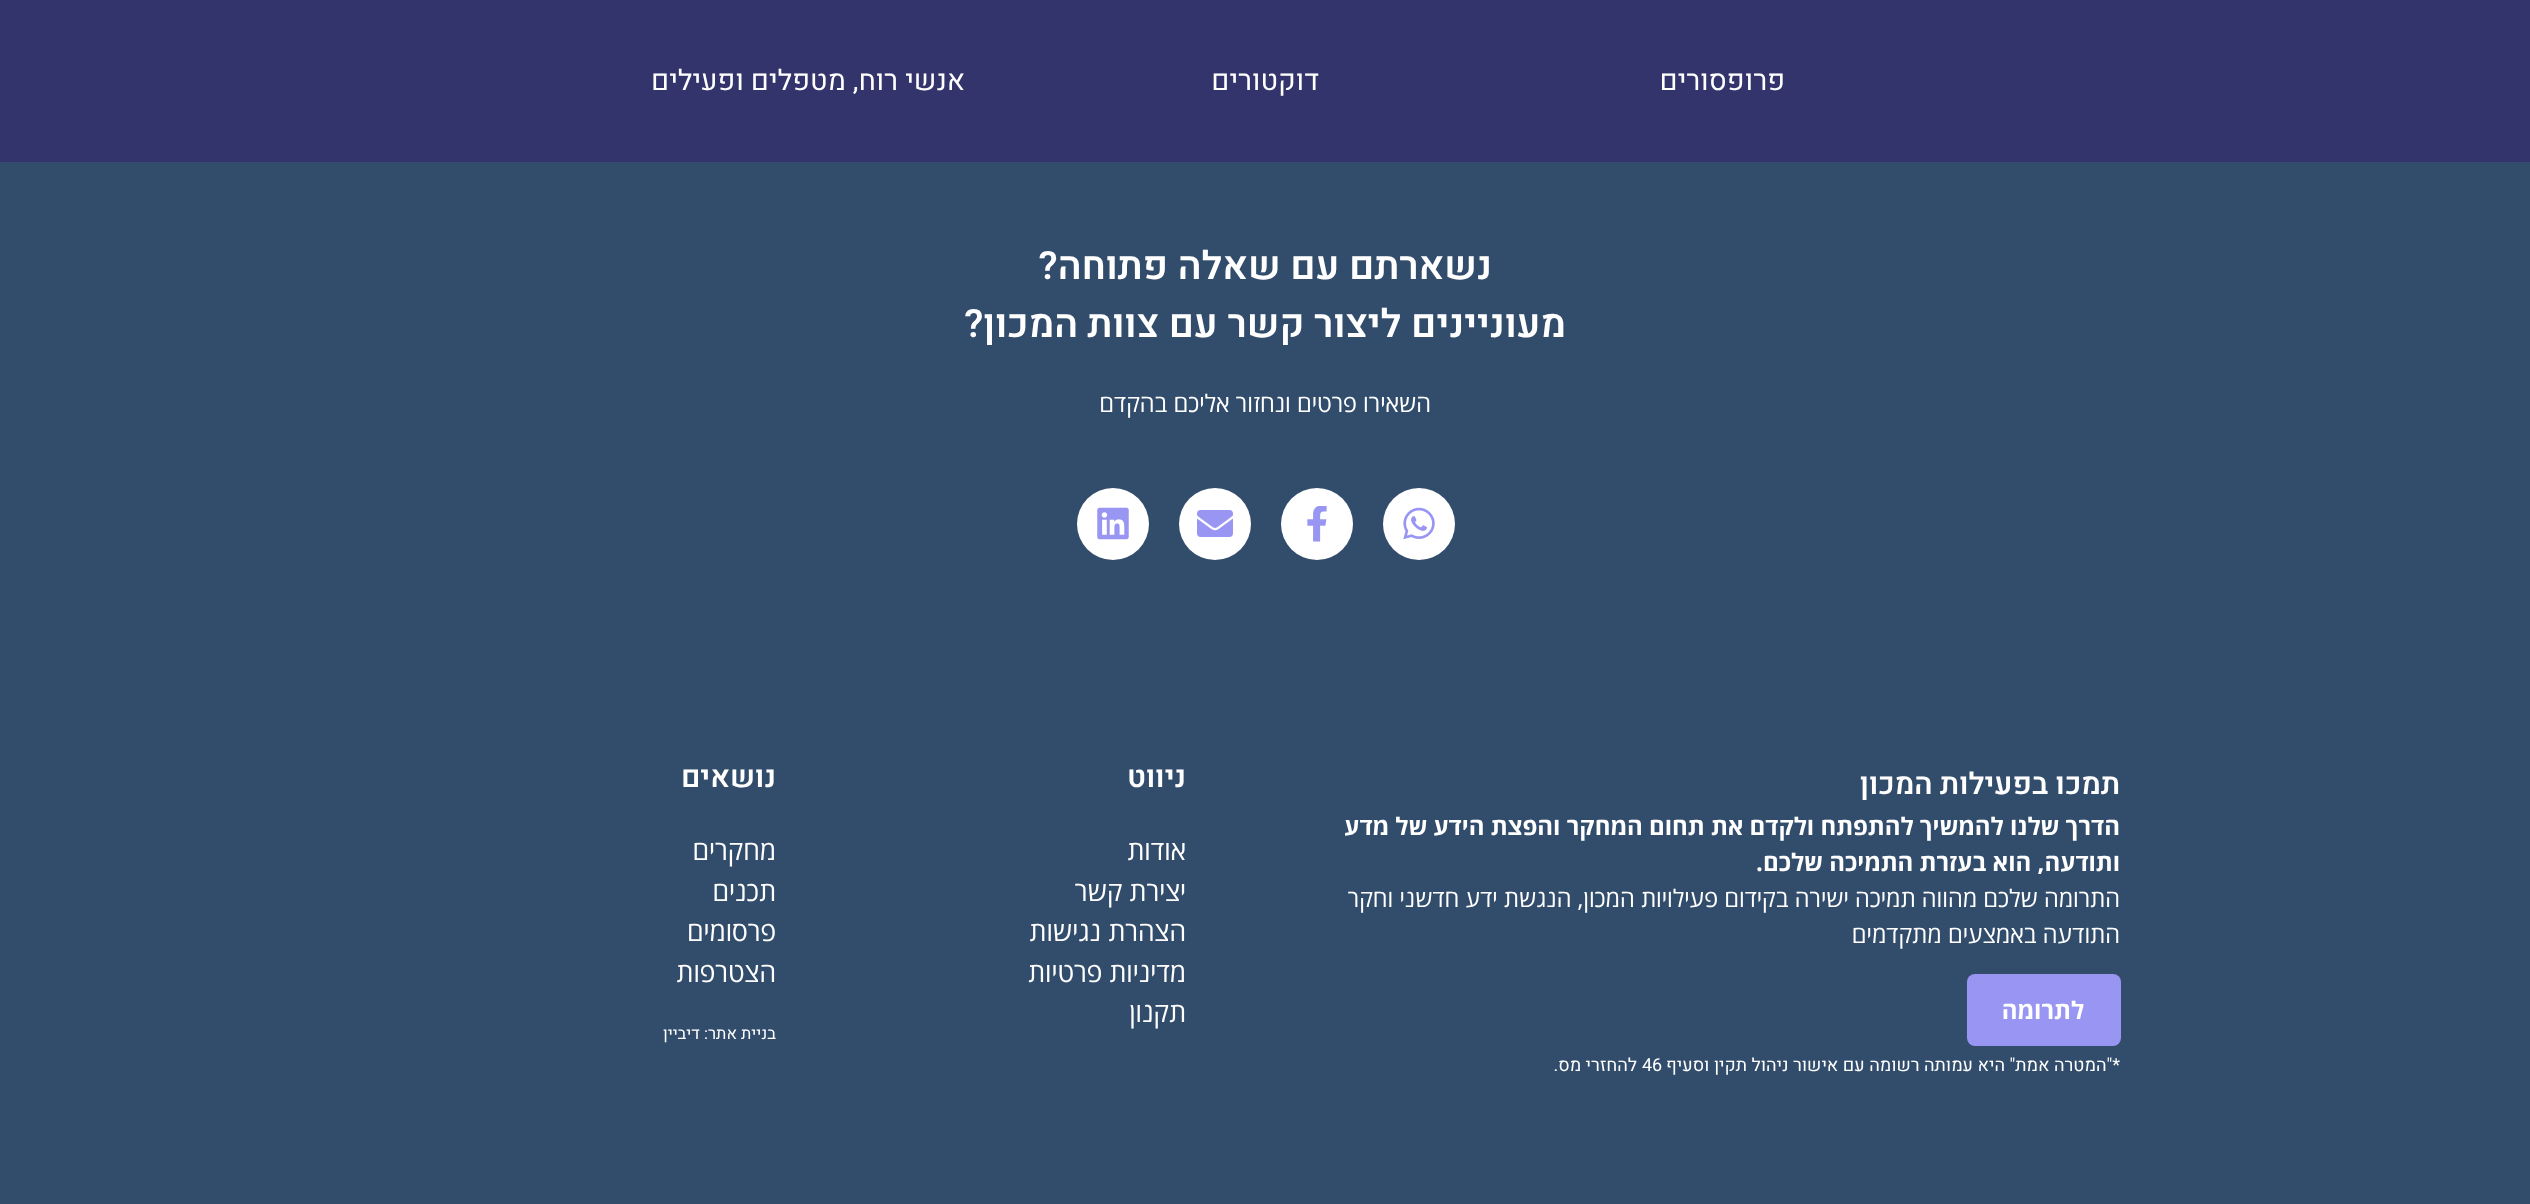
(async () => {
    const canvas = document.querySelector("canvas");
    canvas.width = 2530;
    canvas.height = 1204;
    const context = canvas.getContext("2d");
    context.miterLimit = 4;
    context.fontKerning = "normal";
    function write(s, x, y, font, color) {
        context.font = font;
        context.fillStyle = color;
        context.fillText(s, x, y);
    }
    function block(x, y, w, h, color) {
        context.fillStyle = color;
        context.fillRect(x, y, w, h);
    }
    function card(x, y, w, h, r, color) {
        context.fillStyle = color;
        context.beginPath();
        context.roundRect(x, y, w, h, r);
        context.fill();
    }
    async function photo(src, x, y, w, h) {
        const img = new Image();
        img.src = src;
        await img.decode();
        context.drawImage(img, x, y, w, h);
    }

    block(0, 0, 2530, 1204, "rgb(50, 52, 107)");
    context.direction = "rtl";
    write("פרופסורים", 1785, 90, "28.5px Heebo", "rgb(255, 255, 255)");
    write("דוקטורים", 1319, 90, "28.5px Heebo", "rgb(255, 255, 255)");
    write("אנשי רוח, מטפלים ופעילים", 965, 90, "28.5px Heebo", "rgb(255, 255, 255)");
    block(0, 162, 2530, 1042, "rgb(50, 76, 107)");
    write("נשארתם עם שאלה פתוחה?", 1492, 279, "600 39px Heebo", "rgb(255, 255, 255)");
    write("מעוניינים ליצור קשר עם צוות המכון?", 1566, 337, "600 39px Heebo", "rgb(255, 255, 255)");
    write("השאירו פרטים ונחזור אליכם בהקדם", 1431, 412, "24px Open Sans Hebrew", "rgb(255, 255, 255)");
    context.beginPath();
    context.arc(1419, 524, 36, 0, Math.PI * 2);
    context.fill();
    await photo("media/1.png", 1403, 507, 32, 33);
    context.beginPath();
    context.arc(1317, 524, 36, 0, Math.PI * 2);
    context.fill();
    await photo("media/2.png", 1307, 506, 20, 36);
    context.beginPath();
    context.arc(1215, 524, 36, 0, Math.PI * 2);
    context.fill();
    await photo("media/3.png", 1197, 510, 36, 27);
    context.beginPath();
    context.arc(1113, 524, 36, 0, Math.PI * 2);
    context.fill();
    await photo("media/4.png", 1097, 507, 32, 33);
    write("תמכו בפעילות המכון", 2120, 794, "600 30px Heebo", "rgb(255, 255, 255)");
    write("הדרך שלנו להמשיך להתפתח ולקדם את תחום המחקר והפצת הידע של מדע", 2120, 835, "bold 24px Open Sans Hebrew", "rgb(255, 255, 255)");
    write("ותודעה, הוא בעזרת התמיכה שלכם.", 2120, 871, "bold 24px Open Sans Hebrew", "rgb(255, 255, 255)");
    write("התרומה שלכם מהווה תמיכה ישירה בקידום פעילויות המכון, הנגשת ידע חדשני וחקר", 2120, 907, "24px Open Sans Hebrew", "rgb(255, 255, 255)");
    write("התודעה באמצעים מתקדמים", 2120, 943, "24px Open Sans Hebrew", "rgb(255, 255, 255)");
    card(1967, 974, 154, 72, 8, "rgb(153, 150, 243)");
    write("לתרומה", 2084, 1019, "bold 24px Open Sans Hebrew", "rgb(255, 255, 255)");
    write("*\"המטרה אמת\" היא עמותה רשומה עם אישור ניהול תקין וסעיף", 2120, 1071, "18px Heebo", "rgb(255, 255, 255)");
    context.direction = "ltr";
    write("46", 1642, 1071, "18px Heebo", "rgb(255, 255, 255)");
    context.direction = "rtl";
    write("להחזרי מס.", 1637, 1071, "18px Heebo", "rgb(255, 255, 255)");
    write("ניווט", 1186, 787, "600 30px Heebo", "rgb(255, 255, 255)");
    write("אודות", 1186, 860, "27px Open Sans Hebrew", "rgb(255, 255, 255)");
    write("יצירת קשר", 1186, 901, "27px Open Sans Hebrew", "rgb(255, 255, 255)");
    write("הצהרת נגישות", 1186, 941, "27px Open Sans Hebrew", "rgb(255, 255, 255)");
    write("מדיניות פרטיות", 1186, 982, "27px Open Sans Hebrew", "rgb(255, 255, 255)");
    write("תקנון", 1186, 1022, "27px Open Sans Hebrew", "rgb(255, 255, 255)");
    write("נושאים", 776, 787, "600 30px Heebo", "rgb(255, 255, 255)");
    write("מחקרים", 776, 860, "27px Open Sans Hebrew", "rgb(255, 255, 255)");
    write("תכנים", 776, 901, "27px Open Sans Hebrew", "rgb(255, 255, 255)");
    write("פרסומים", 776, 941, "27px Open Sans Hebrew", "rgb(255, 255, 255)");
    write("הצטרפות", 776, 982, "27px Open Sans Hebrew", "rgb(255, 255, 255)");
    write("בניית אתר: דיביין", 776, 1039, "16.5px Heebo", "rgb(255, 255, 255)");
})();
